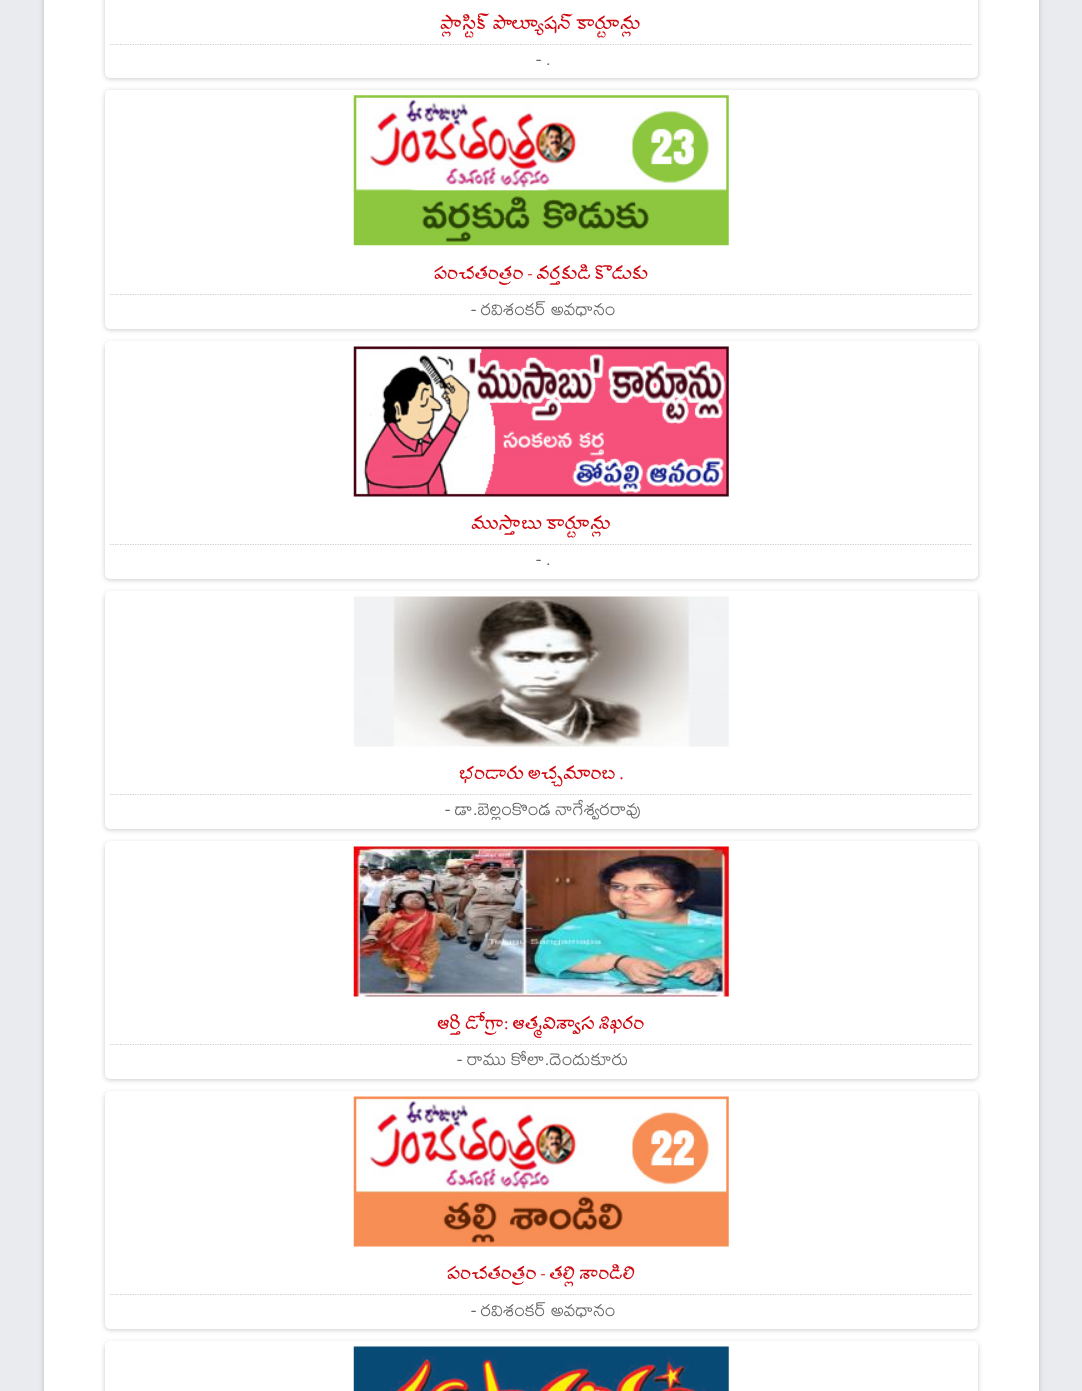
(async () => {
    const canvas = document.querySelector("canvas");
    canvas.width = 1082;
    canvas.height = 1391;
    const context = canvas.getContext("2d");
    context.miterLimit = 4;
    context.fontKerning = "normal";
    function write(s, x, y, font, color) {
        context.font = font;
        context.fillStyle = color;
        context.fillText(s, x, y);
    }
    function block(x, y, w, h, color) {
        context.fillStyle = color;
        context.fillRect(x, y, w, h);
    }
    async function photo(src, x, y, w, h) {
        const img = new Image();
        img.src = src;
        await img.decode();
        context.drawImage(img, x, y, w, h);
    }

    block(0, 0, 1082, 1391, "rgb(233, 235, 238)");
    context.fillStyle = "rgba(0, 0, 0, 0.2)";
    context.filter = "blur(2.5px)";
    context.beginPath();
    context.roundRect(44, -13, 995, 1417, 5);
    context.fill();
    context.filter = "none";
    block(44, 0, 995, 1391, "rgb(255, 255, 255)");
    context.fillStyle = "rgba(0, 0, 0, 0.2)";
    context.filter = "blur(2.5px)";
    context.beginPath();
    context.roundRect(105, -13, 873, 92, 5);
    context.fill();
    context.filter = "none";
    context.fillStyle = "rgb(255, 255, 255)";
    context.beginPath();
    context.roundRect(107.5, -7.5, 868, 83, 2.5);
    context.fill();
    context.strokeStyle = "rgb(255, 255, 255)";
    context.lineWidth = 5;
    context.stroke();
    write("ప్లాస్టిక్ పొల్యూషన్ కార్టూన్లు", 440, 29, "21.5px Suravaram", "rgb(208, 10, 17)");
    context.beginPath();
    context.moveTo(110, 44.5);
    context.lineTo(972.5, 44.5);
    context.strokeStyle = "rgb(206, 203, 199)";
    context.lineWidth = 1.2;
    context.setLineDash([1.25, 1.25]);
    context.stroke();
    write("- .", 536, 65, "19.75px Mallanna", "rgb(102, 102, 102)");
    context.fillStyle = "rgba(0, 0, 0, 0.2)";
    context.filter = "blur(2.5px)";
    context.beginPath();
    context.roundRect(105, 91, 873, 239, 5);
    context.fill();
    context.filter = "none";
    context.fillStyle = "rgb(255, 255, 255)";
    context.beginPath();
    context.roundRect(107.5, 92.5, 868, 234, 2.5);
    context.fill();
    context.strokeStyle = "rgb(255, 255, 255)";
    context.lineWidth = 5;
    context.setLineDash([]);
    context.stroke();
    await photo("media/1.png", 353, 95, 376, 151);
    write("పంచతంత్రం - వర్తకుడి కొడుకు", 434, 279, "21.5px Suravaram", "rgb(208, 10, 17)");
    context.beginPath();
    context.moveTo(110, 294.5);
    context.lineTo(972.5, 294.5);
    context.strokeStyle = "rgb(206, 203, 199)";
    context.lineWidth = 1.2;
    context.setLineDash([1.25, 1.25]);
    context.stroke();
    write("- రవిశంకర్ అవధానం", 471, 315, "19.75px Mallanna", "rgb(102, 102, 102)");
    context.fillStyle = "rgba(0, 0, 0, 0.2)";
    context.filter = "blur(2.5px)";
    context.beginPath();
    context.roundRect(105, 343, 873, 237, 5);
    context.fill();
    context.filter = "none";
    context.fillStyle = "rgb(255, 255, 255)";
    context.beginPath();
    context.roundRect(107.5, 343.5, 868, 233, 2.5);
    context.fill();
    context.strokeStyle = "rgb(255, 255, 255)";
    context.lineWidth = 5;
    context.setLineDash([]);
    context.stroke();
    await photo("media/2.png", 353, 346, 376, 151);
    write("ముస్తాబు కార్టూన్లు", 471, 529, "21.5px Suravaram", "rgb(208, 10, 17)");
    context.beginPath();
    context.moveTo(110, 544.5);
    context.lineTo(972.5, 544.5);
    context.strokeStyle = "rgb(206, 203, 199)";
    context.lineWidth = 1.2;
    context.setLineDash([1.25, 1.25]);
    context.stroke();
    write("- .", 536, 565, "19.75px Mallanna", "rgb(102, 102, 102)");
    context.fillStyle = "rgba(0, 0, 0, 0.2)";
    context.filter = "blur(2.5px)";
    context.beginPath();
    context.roundRect(105, 593, 873, 237, 5);
    context.fill();
    context.filter = "none";
    context.fillStyle = "rgb(255, 255, 255)";
    context.beginPath();
    context.roundRect(107.5, 593.5, 868, 233, 2.5);
    context.fill();
    context.strokeStyle = "rgb(255, 255, 255)";
    context.lineWidth = 5;
    context.setLineDash([]);
    context.stroke();
    await photo("media/3.png", 354, 596, 375, 151);
    write("భండారు అచ్చమాంబ .", 459, 779, "21.5px Suravaram", "rgb(208, 10, 17)");
    context.beginPath();
    context.moveTo(110, 794.5);
    context.lineTo(972.5, 794.5);
    context.strokeStyle = "rgb(206, 203, 199)";
    context.lineWidth = 1.2;
    context.setLineDash([1.25, 1.25]);
    context.stroke();
    write("- డా.బెల్లంకొండ నాగేశ్వరరావు", 445, 815, "19.75px Mallanna", "rgb(102, 102, 102)");
    context.fillStyle = "rgba(0, 0, 0, 0.2)";
    context.filter = "blur(2.5px)";
    context.beginPath();
    context.roundRect(105, 843, 873, 237, 5);
    context.fill();
    context.filter = "none";
    context.fillStyle = "rgb(255, 255, 255)";
    context.beginPath();
    context.roundRect(107.5, 843.5, 868, 233, 2.5);
    context.fill();
    context.strokeStyle = "rgb(255, 255, 255)";
    context.lineWidth = 5;
    context.setLineDash([]);
    context.stroke();
    await photo("media/4.png", 353, 846, 376, 151);
    write("ఆర్తి డోగ్రా: ఆత్మవిశ్వాస శిఖరం", 437, 1029, "21.5px Suravaram", "rgb(208, 10, 17)");
    context.beginPath();
    context.moveTo(110, 1044.5);
    context.lineTo(972.5, 1044.5);
    context.strokeStyle = "rgb(206, 203, 199)";
    context.lineWidth = 1.2;
    context.setLineDash([1.25, 1.25]);
    context.stroke();
    write("- రాము కోలా.దెందుకూరు", 457, 1065, "19.75px Mallanna", "rgb(102, 102, 102)");
    context.fillStyle = "rgba(0, 0, 0, 0.2)";
    context.filter = "blur(2.5px)";
    context.beginPath();
    context.roundRect(105, 1093, 873, 237, 5);
    context.fill();
    context.filter = "none";
    context.fillStyle = "rgb(255, 255, 255)";
    context.beginPath();
    context.roundRect(107.5, 1093.5, 868, 233, 2.5);
    context.fill();
    context.strokeStyle = "rgb(255, 255, 255)";
    context.lineWidth = 5;
    context.setLineDash([]);
    context.stroke();
    await photo("media/5.png", 353, 1096, 376, 151);
    write("పంచతంత్రం - తల్లి శాండిలి", 447, 1279, "21.5px Suravaram", "rgb(208, 10, 17)");
    context.beginPath();
    context.moveTo(110, 1294.5);
    context.lineTo(972.5, 1294.5);
    context.strokeStyle = "rgb(206, 203, 199)";
    context.lineWidth = 1.2;
    context.setLineDash([1.25, 1.25]);
    context.stroke();
    write("- రవిశంకర్ అవధానం", 471, 1316, "19.75px Mallanna", "rgb(102, 102, 102)");
    context.fillStyle = "rgba(0, 0, 0, 0.2)";
    context.filter = "blur(2.5px)";
    context.beginPath();
    context.roundRect(105, 1343, 873, 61, 5);
    context.fill();
    context.filter = "none";
    context.fillStyle = "rgb(255, 255, 255)";
    context.beginPath();
    context.roundRect(107.5, 1343.5, 868, 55, 2.5);
    context.fill();
    context.strokeStyle = "rgb(255, 255, 255)";
    context.lineWidth = 5;
    context.setLineDash([]);
    context.stroke();
    await photo("media/6.png", 353, 1346, 376, 45);
})();
